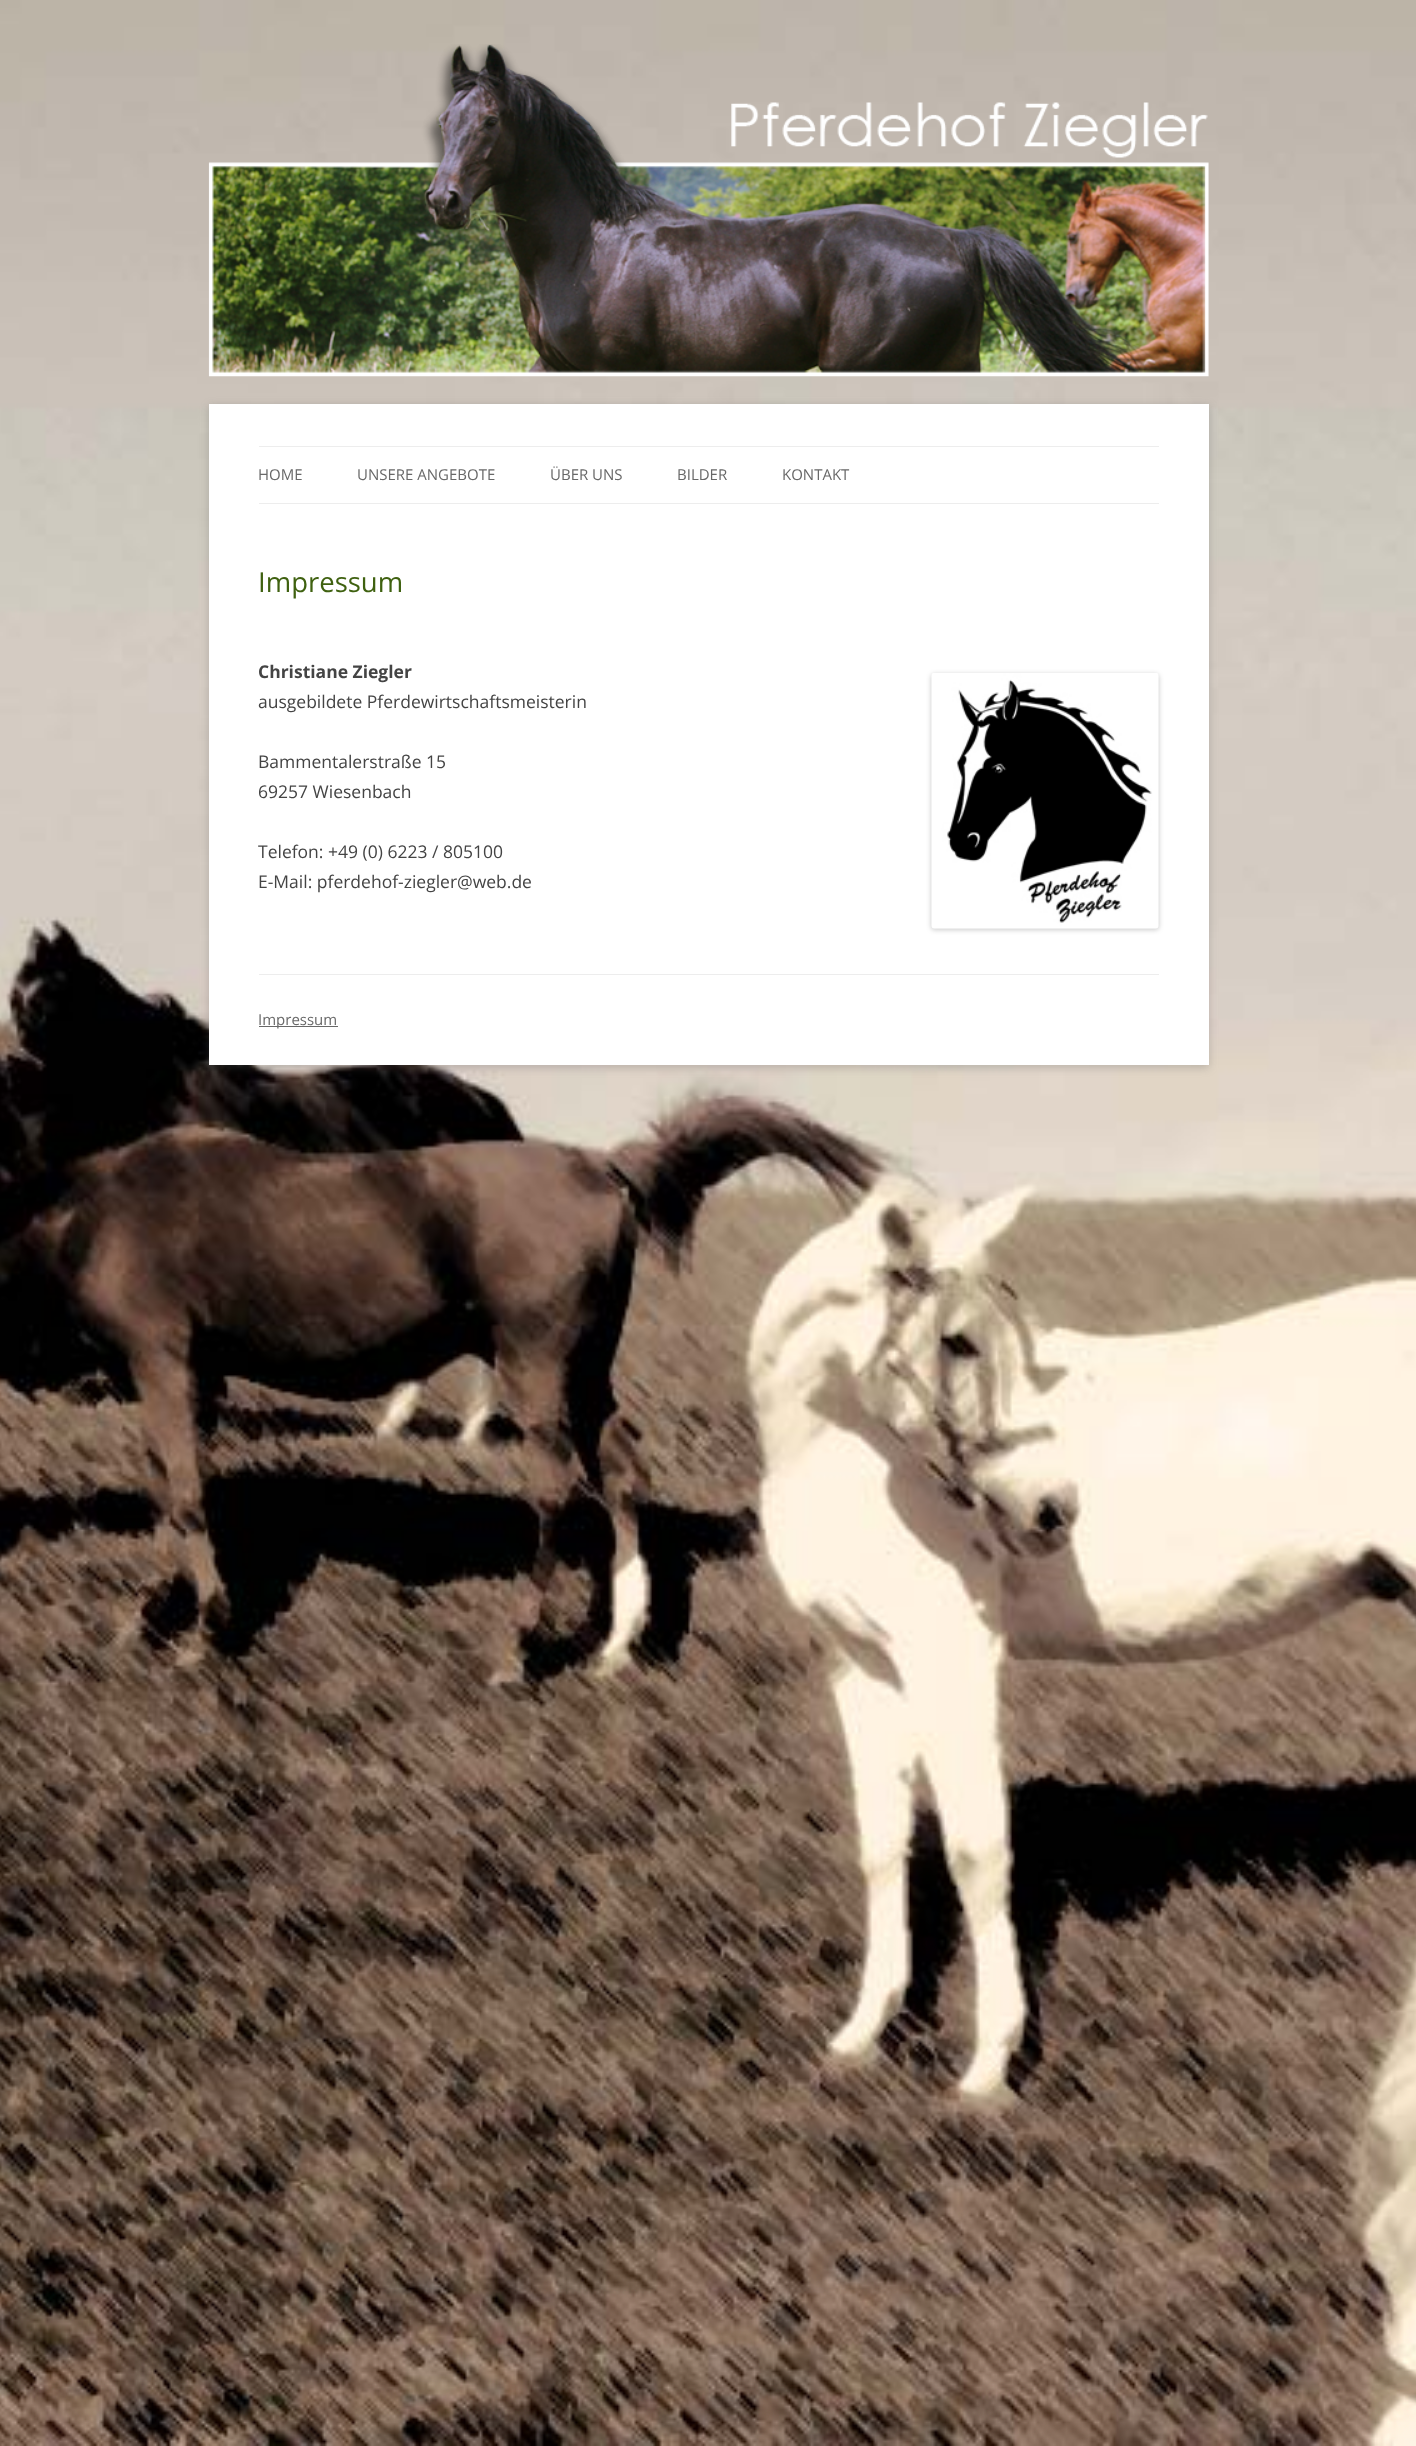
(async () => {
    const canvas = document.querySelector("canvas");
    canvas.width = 1416;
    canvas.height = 2446;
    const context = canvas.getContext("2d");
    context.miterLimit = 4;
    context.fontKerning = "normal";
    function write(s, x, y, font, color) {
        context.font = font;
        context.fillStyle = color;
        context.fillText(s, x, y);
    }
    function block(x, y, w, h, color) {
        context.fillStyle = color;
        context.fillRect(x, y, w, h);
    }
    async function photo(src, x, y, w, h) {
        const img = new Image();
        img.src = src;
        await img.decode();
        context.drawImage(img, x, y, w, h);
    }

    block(0, 0, 1416, 2446, "rgb(255, 255, 255)");
    await photo("media/1.png", 0, 0, 1416, 2446);
    await photo("media/2.png", 208, 44, 1001, 333);
    context.fillStyle = "rgba(100, 100, 100, 0.3)";
    context.filter = "blur(4px)";
    context.beginPath();
    context.rect(209, 406, 1000, 662);
    context.fill();
    context.filter = "none";
    block(209, 404, 1000, 661, "rgb(255, 255, 255)");
    block(259, 446, 900, 1, "rgb(237, 237, 237)");
    block(259, 503, 900, 1, "rgb(237, 237, 237)");
    write("HOME", 258, 480, "15px Open Sans", "rgb(104, 104, 104)");
    write("UNSERE ANGEBOTE", 357, 480, "15px Open Sans", "rgb(104, 104, 104)");
    write("ÜBER UNS", 550, 480, "15px Open Sans", "rgb(104, 104, 104)");
    write("BILDER", 677, 480, "15px Open Sans", "rgb(104, 104, 104)");
    write("KONTAKT", 782, 480, "15px Open Sans", "rgb(104, 104, 104)");
    write("Impressum", 258, 592, "27.5px Open Sans", "rgb(63, 97, 16)");
    write("Christiane Ziegler", 258, 678, "bold 17.5px Open Sans", "rgb(68, 68, 68)");
    context.fillStyle = "rgba(0, 0, 0, 0.2)";
    context.filter = "blur(2.5px)";
    context.beginPath();
    context.roundRect(931, 674, 228, 256, 4);
    context.fill();
    context.filter = "none";
    await photo("media/3.png", 931, 673, 228, 256);
    write("ausgebildete Pferdewirtschaftsmeisterin", 258, 708, "17.5px Open Sans", "rgb(68, 68, 68)");
    write("Bammentalerstraße 15", 258, 768, "17.5px Open Sans", "rgb(68, 68, 68)");
    write("69257 Wiesenbach", 258, 798, "17.5px Open Sans", "rgb(68, 68, 68)");
    write("Telefon: +49 (0) 6223 / 805100", 258, 858, "17.5px Open Sans", "rgb(68, 68, 68)");
    write("E-Mail: pferdehof-ziegler@web.de", 258, 888, "17.5px Open Sans", "rgb(68, 68, 68)");
    block(259, 974, 900, 1, "rgb(237, 237, 237)");
    block(259, 1026, 79, 1, "rgb(104, 104, 104)");
    write("Impressum", 258, 1025, "15px Open Sans", "rgb(104, 104, 104)");
})();
